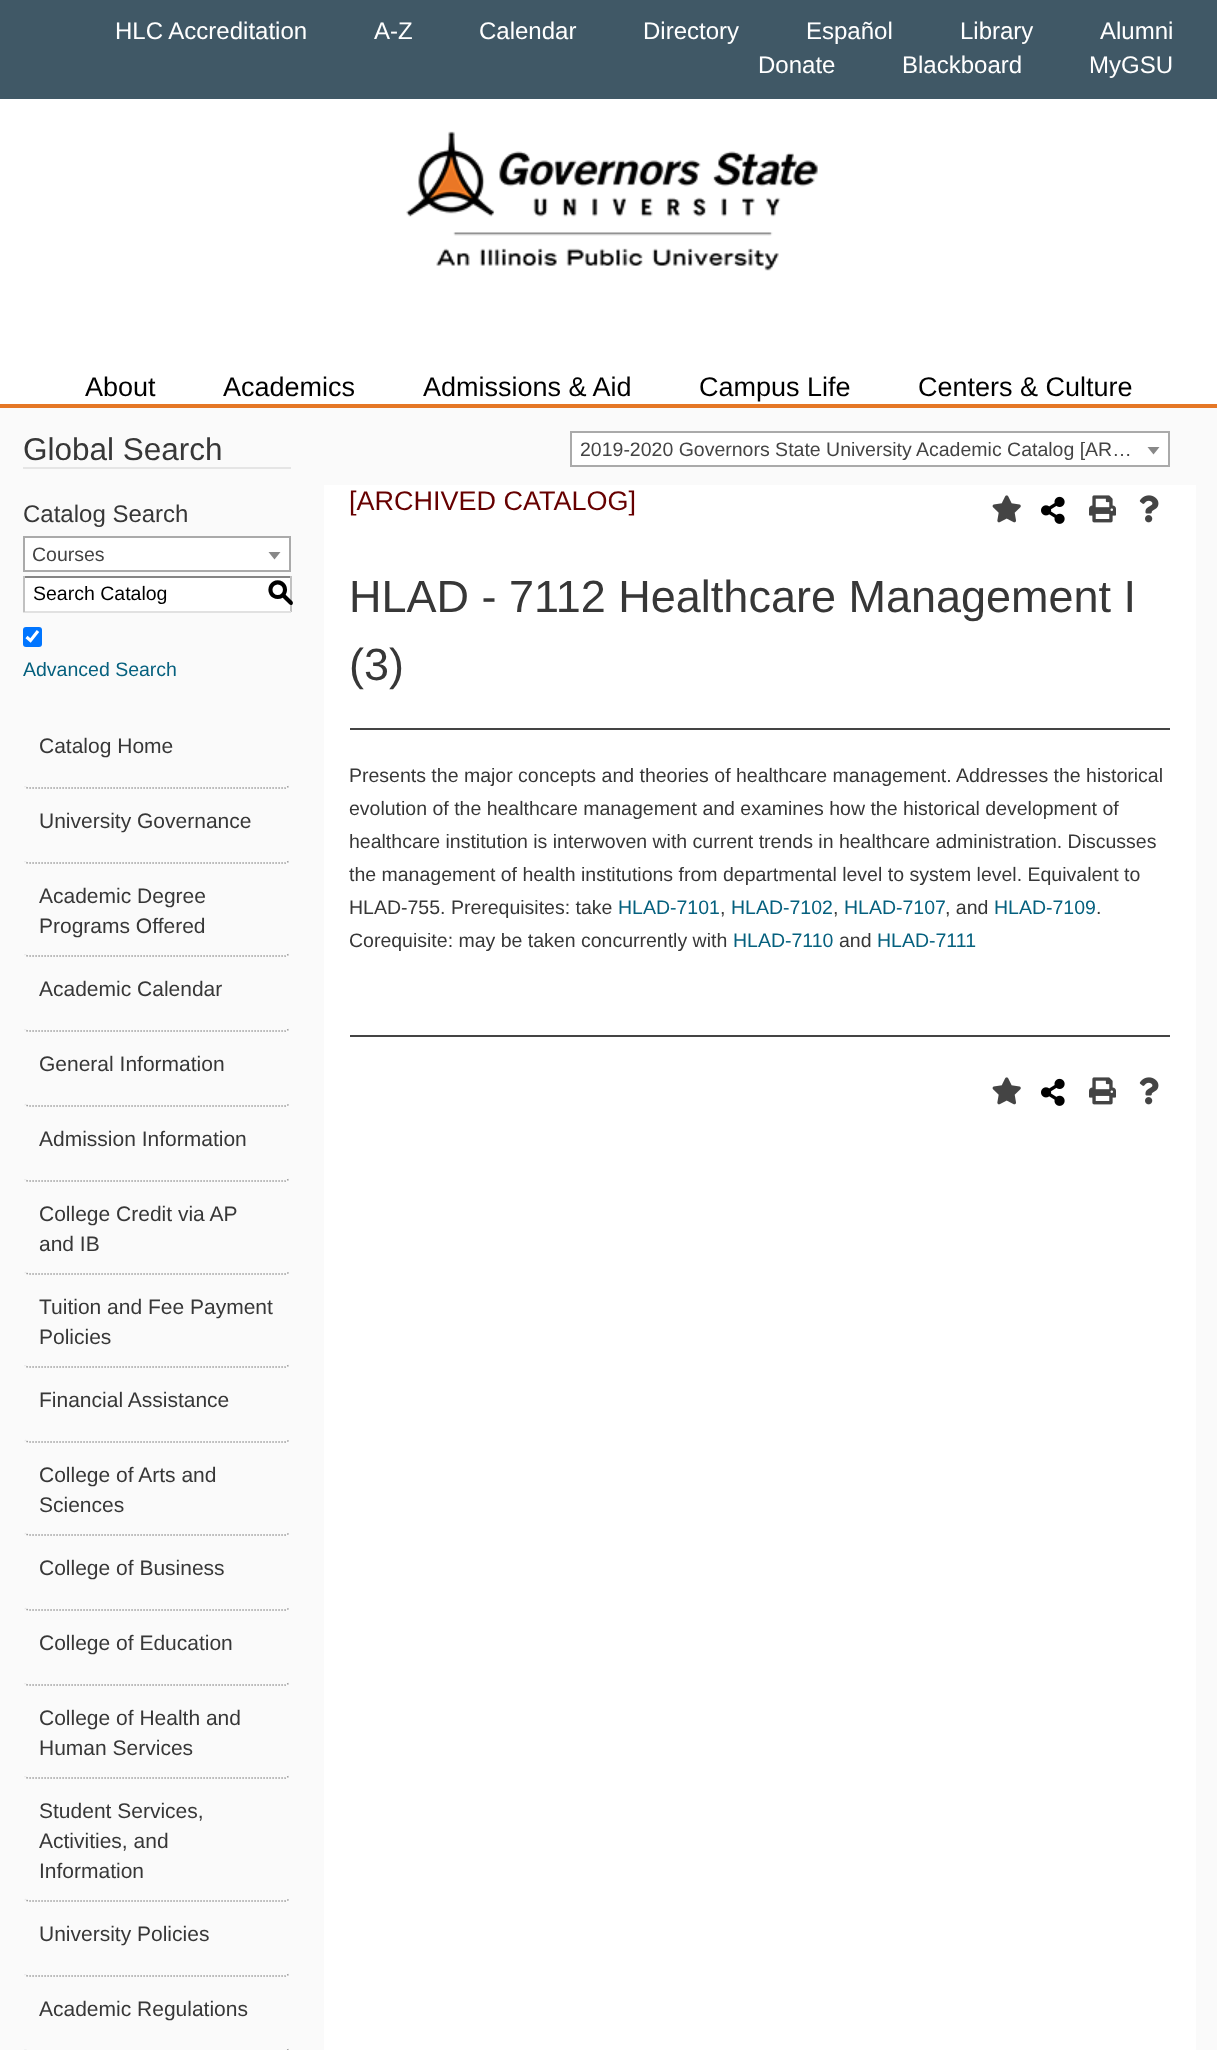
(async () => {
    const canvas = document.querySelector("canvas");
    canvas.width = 1217;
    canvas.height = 2050;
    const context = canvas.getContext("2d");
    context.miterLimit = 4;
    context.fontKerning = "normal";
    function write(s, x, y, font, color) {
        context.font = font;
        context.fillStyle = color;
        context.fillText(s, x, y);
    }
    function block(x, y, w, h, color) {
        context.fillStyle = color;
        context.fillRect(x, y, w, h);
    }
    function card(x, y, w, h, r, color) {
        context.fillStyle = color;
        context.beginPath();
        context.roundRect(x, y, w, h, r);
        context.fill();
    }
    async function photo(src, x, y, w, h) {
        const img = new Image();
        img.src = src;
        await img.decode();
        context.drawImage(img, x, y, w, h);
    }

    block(0, 0, 1217, 2050, "rgb(255, 255, 255)");
    block(0, 0, 1217, 99, "rgb(64, 88, 102)");
    write("HLC Accreditation", 115, 39, "24px Liberation Sans", "rgb(255, 255, 255)");
    write("A-Z", 374, 39, "24px Liberation Sans", "rgb(255, 255, 255)");
    write("Calendar", 479, 39, "24px Liberation Sans", "rgb(255, 255, 255)");
    write("Directory", 643, 39, "24px Liberation Sans", "rgb(255, 255, 255)");
    write("Español", 806, 39, "24px Liberation Sans", "rgb(255, 255, 255)");
    write("Library", 960, 39, "24px Liberation Sans", "rgb(255, 255, 255)");
    write("Alumni", 1100, 39, "24px Liberation Sans", "rgb(255, 255, 255)");
    write("Donate", 758, 73, "24px Liberation Sans", "rgb(255, 255, 255)");
    write("Blackboard", 902, 73, "24px Liberation Sans", "rgb(255, 255, 255)");
    write("MyGSU", 1089, 73, "24px Liberation Sans", "rgb(255, 255, 255)");
    await photo("media/1.png", 406, 131, 412, 140);
    write("About", 85, 396, "27px Liberation Sans", "rgb(0, 0, 0)");
    write("Academics", 223, 396, "27px Liberation Sans", "rgb(0, 0, 0)");
    write("Admissions & Aid", 423, 396, "27px Liberation Sans", "rgb(0, 0, 0)");
    write("Campus Life", 699, 396, "27px Liberation Sans", "rgb(0, 0, 0)");
    write("Centers & Culture", 918, 396, "27px Liberation Sans", "rgb(0, 0, 0)");
    block(0, 404, 1217, 4, "rgb(229, 119, 38)");
    block(0, 408, 1217, 1642, "rgb(250, 250, 250)");
    block(23, 467, 268, 2, "rgb(229, 229, 229)");
    write("Global Search", 23, 460, "31.5px Liberation Sans", "rgb(55, 55, 55)");
    write("Catalog Search", 23, 522, "24px Liberation Sans", "rgb(55, 55, 55)");
    context.fillStyle = "rgb(255, 255, 255)";
    context.beginPath();
    context.rect(24, 537, 266, 34);
    context.fill();
    context.strokeStyle = "rgb(170, 170, 170)";
    context.lineWidth = 2;
    context.stroke();
    write("Courses", 32, 561, "19.5px Liberation Sans", "rgb(68, 68, 68)");
    context.fillStyle = "rgb(136, 136, 136)";
    context.beginPath();
    context.moveTo(268.5, 552);
    context.lineTo(280.5, 552);
    context.lineTo(274.5, 559.5);
    context.closePath();
    context.fill();
    block(25, 578, 265, 33, "rgb(255, 255, 255)");
    block(23, 576, 268, 2, "rgb(132, 132, 132)");
    block(290, 576, 2, 36, "rgb(193, 193, 193)");
    block(23, 611, 268, 2, "rgb(225, 225, 225)");
    block(23, 576, 2, 36, "rgb(193, 193, 193)");
    write("Search Catalog", 33, 600, "19.5px Liberation Sans", "rgb(0, 0, 0)");
    write("S", 267, 601, "500 27px 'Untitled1'", "rgb(0, 0, 0)");
    card(23, 627, 19, 20, 3, "rgb(0, 117, 255)");
    context.beginPath();
    context.moveTo(26.5, 637);
    context.lineTo(30.5, 640.5);
    context.lineTo(38, 631);
    context.strokeStyle = "rgb(255, 255, 255)";
    context.lineWidth = 3.1;
    context.stroke();
    write("Advanced Search", 23, 676, "19.5px Liberation Sans", "rgb(5, 96, 126)");
    context.beginPath();
    context.moveTo(288.5, 786.5);
    context.lineTo(285.5, 788);
    context.lineTo(28.5, 788);
    context.bezierCurveTo(27, 788, 26, 787.5, 25, 786.5);
    context.strokeStyle = "rgb(153, 153, 153)";
    context.lineWidth = 1.5;
    context.setLineDash([1.5, 1.5]);
    context.stroke();
    write("Catalog Home", 39, 753, "21px Liberation Sans", "rgb(55, 55, 55)");
    context.beginPath();
    context.moveTo(288.5, 861.5);
    context.lineTo(285.5, 863);
    context.lineTo(28.5, 863);
    context.bezierCurveTo(27, 863, 26, 862.5, 25, 861.5);
    context.stroke();
    write("University Governance", 39, 828, "21px Liberation Sans", "rgb(55, 55, 55)");
    context.beginPath();
    context.moveTo(288.5, 954.5);
    context.lineTo(285.5, 956);
    context.lineTo(28.5, 956);
    context.bezierCurveTo(27, 956, 26, 955.5, 25, 954.5);
    context.stroke();
    write("Academic Degree", 39, 903, "21px Liberation Sans", "rgb(55, 55, 55)");
    write("Programs Offered", 39, 933, "21px Liberation Sans", "rgb(55, 55, 55)");
    context.beginPath();
    context.moveTo(288.5, 1029.5);
    context.lineTo(285.5, 1031);
    context.lineTo(28.5, 1031);
    context.bezierCurveTo(27, 1031, 26, 1030.5, 25, 1029.5);
    context.stroke();
    write("Academic Calendar", 39, 996, "21px Liberation Sans", "rgb(55, 55, 55)");
    context.beginPath();
    context.moveTo(288.5, 1104.5);
    context.bezierCurveTo(287.5, 1105.5, 286.5, 1106, 285, 1106);
    context.lineTo(28, 1106);
    context.lineTo(25, 1104.5);
    context.stroke();
    write("General Information", 39, 1071, "21px Liberation Sans", "rgb(55, 55, 55)");
    context.beginPath();
    context.moveTo(288.5, 1179.5);
    context.lineTo(285.5, 1181);
    context.lineTo(28.5, 1181);
    context.bezierCurveTo(27, 1181, 26, 1180.5, 25, 1179.5);
    context.stroke();
    write("Admission Information", 39, 1146, "21px Liberation Sans", "rgb(55, 55, 55)");
    context.beginPath();
    context.moveTo(288.5, 1272.5);
    context.bezierCurveTo(287.5, 1273.5, 286.5, 1274, 285, 1274);
    context.lineTo(28, 1274);
    context.lineTo(25, 1272.5);
    context.stroke();
    write("College Credit via AP", 39, 1221, "21px Liberation Sans", "rgb(55, 55, 55)");
    write("and IB", 39, 1251, "21px Liberation Sans", "rgb(55, 55, 55)");
    context.beginPath();
    context.moveTo(288.5, 1365.5);
    context.lineTo(285.5, 1367);
    context.lineTo(28.5, 1367);
    context.bezierCurveTo(27, 1367, 26, 1366.5, 25, 1365.5);
    context.stroke();
    write("Tuition and Fee Payment", 39, 1314, "21px Liberation Sans", "rgb(55, 55, 55)");
    write("Policies", 39, 1344, "21px Liberation Sans", "rgb(55, 55, 55)");
    context.beginPath();
    context.moveTo(288.5, 1440.5);
    context.bezierCurveTo(287.5, 1441.5, 286.5, 1442, 285, 1442);
    context.lineTo(28, 1442);
    context.lineTo(25, 1440.5);
    context.stroke();
    write("Financial Assistance", 39, 1407, "21px Liberation Sans", "rgb(55, 55, 55)");
    context.beginPath();
    context.moveTo(288.5, 1533.5);
    context.bezierCurveTo(287.5, 1534.5, 286.5, 1535, 285, 1535);
    context.lineTo(28, 1535);
    context.lineTo(25, 1533.5);
    context.stroke();
    write("College of Arts and", 39, 1482, "21px Liberation Sans", "rgb(55, 55, 55)");
    write("Sciences", 39, 1512, "21px Liberation Sans", "rgb(55, 55, 55)");
    context.beginPath();
    context.moveTo(288.5, 1608.5);
    context.bezierCurveTo(287.5, 1609.5, 286.5, 1610, 285, 1610);
    context.lineTo(28, 1610);
    context.lineTo(25, 1608.5);
    context.stroke();
    write("College of Business", 39, 1575, "21px Liberation Sans", "rgb(55, 55, 55)");
    context.beginPath();
    context.moveTo(288.5, 1683.5);
    context.lineTo(285.5, 1685);
    context.lineTo(28.5, 1685);
    context.bezierCurveTo(27, 1685, 26, 1684.5, 25, 1683.5);
    context.stroke();
    write("College of Education", 39, 1650, "21px Liberation Sans", "rgb(55, 55, 55)");
    context.beginPath();
    context.moveTo(288.5, 1776.5);
    context.lineTo(285.5, 1778);
    context.lineTo(28.5, 1778);
    context.bezierCurveTo(27, 1778, 26, 1777.5, 25, 1776.5);
    context.stroke();
    write("College of Health and", 39, 1725, "21px Liberation Sans", "rgb(55, 55, 55)");
    write("Human Services", 39, 1755, "21px Liberation Sans", "rgb(55, 55, 55)");
    context.beginPath();
    context.moveTo(288.5, 1899.5);
    context.bezierCurveTo(287.5, 1900.5, 286.5, 1901, 285, 1901);
    context.lineTo(28, 1901);
    context.lineTo(25, 1899.5);
    context.stroke();
    write("Student Services,", 39, 1818, "21px Liberation Sans", "rgb(55, 55, 55)");
    write("Activities, and", 39, 1848, "21px Liberation Sans", "rgb(55, 55, 55)");
    write("Information", 39, 1878, "21px Liberation Sans", "rgb(55, 55, 55)");
    context.beginPath();
    context.moveTo(288.5, 1974.5);
    context.lineTo(285.5, 1976);
    context.lineTo(28.5, 1976);
    context.bezierCurveTo(27, 1976, 26, 1975.5, 25, 1974.5);
    context.stroke();
    write("University Policies", 39, 1941, "21px Liberation Sans", "rgb(55, 55, 55)");
    context.beginPath();
    context.moveTo(288.5, 2049.5);
    context.lineTo(285.5, 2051);
    context.lineTo(28.5, 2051);
    context.bezierCurveTo(27, 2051, 26, 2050.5, 25, 2049.5);
    context.stroke();
    write("Academic Regulations", 39, 2016, "21px Liberation Sans", "rgb(55, 55, 55)");
    block(324, 485, 872, 1565, "rgb(255, 255, 255)");
    write("[ARCHIVED CATALOG]", 349, 510, "27px Liberation Sans", "rgb(102, 0, 0)");
    await photo("media/2.png", 992, 495, 29, 28);
    await photo("media/3.png", 1041, 496, 24, 28);
    await photo("media/4.png", 1089, 495, 27, 28);
    await photo("media/5.png", 1139, 495, 20, 28);
    write("HLAD - 7112 Healthcare Management I", 349, 612, "45px Liberation Sans", "rgb(55, 55, 55)");
    write("(3)", 349, 680, "45px Liberation Sans", "rgb(55, 55, 55)");
    block(350, 728, 820, 2, "rgb(68, 68, 68)");
    write("Presents the major concepts and theories of healthcare management. Addresses the historical", 349, 782, "19.5px Liberation Sans", "rgb(55, 55, 55)");
    write("evolution of the healthcare management and examines how the historical development of", 349, 815, "19.5px Liberation Sans", "rgb(55, 55, 55)");
    write("healthcare institution is interwoven with current trends in healthcare administration. Discusses", 349, 848, "19.5px Liberation Sans", "rgb(55, 55, 55)");
    write("the management of health institutions from departmental level to system level. Equivalent to", 349, 881, "19.5px Liberation Sans", "rgb(55, 55, 55)");
    write("HLAD-755. Prerequisites: take", 349, 914, "19.5px Liberation Sans", "rgb(55, 55, 55)");
    write("HLAD-7101", 618, 914, "19.5px Liberation Sans", "rgb(5, 96, 126)");
    write(",", 720, 914, "19.5px Liberation Sans", "rgb(55, 55, 55)");
    write("HLAD-7102", 731, 914, "19.5px Liberation Sans", "rgb(5, 96, 126)");
    write(",", 833, 914, "19.5px Liberation Sans", "rgb(55, 55, 55)");
    write("HLAD-7107", 844, 914, "19.5px Liberation Sans", "rgb(5, 96, 126)");
    write(", and", 945, 914, "19.5px Liberation Sans", "rgb(55, 55, 55)");
    write("HLAD-7109", 994, 914, "19.5px Liberation Sans", "rgb(5, 96, 126)");
    write(".", 1096, 914, "19.5px Liberation Sans", "rgb(55, 55, 55)");
    write("Corequisite: may be taken concurrently with", 349, 947, "19.5px Liberation Sans", "rgb(55, 55, 55)");
    write("HLAD-7110", 733, 947, "19.5px Liberation Sans", "rgb(5, 96, 126)");
    write("and", 839, 947, "19.5px Liberation Sans", "rgb(55, 55, 55)");
    write("HLAD-7111", 877, 947, "19.5px Liberation Sans", "rgb(5, 96, 126)");
    block(350, 1035, 820, 2, "rgb(68, 68, 68)");
    await photo("media/2.png", 992, 1077, 29, 28);
    await photo("media/3.png", 1041, 1078, 24, 28);
    await photo("media/4.png", 1089, 1077, 27, 28);
    await photo("media/5.png", 1139, 1077, 20, 28);
    context.fillStyle = "rgb(255, 255, 255)";
    context.beginPath();
    context.rect(571, 432, 598, 34);
    context.fill();
    context.strokeStyle = "rgb(170, 170, 170)";
    context.lineWidth = 2;
    context.setLineDash([]);
    context.stroke();
    write("2019-2020 Governors State University Academic Catalog [AR…", 580, 456, "19.5px Liberation Sans", "rgb(68, 68, 68)");
    context.fillStyle = "rgb(136, 136, 136)";
    context.beginPath();
    context.moveTo(1147.5, 447);
    context.lineTo(1159.5, 447);
    context.lineTo(1153.5, 454.5);
    context.closePath();
    context.fill();
})();
